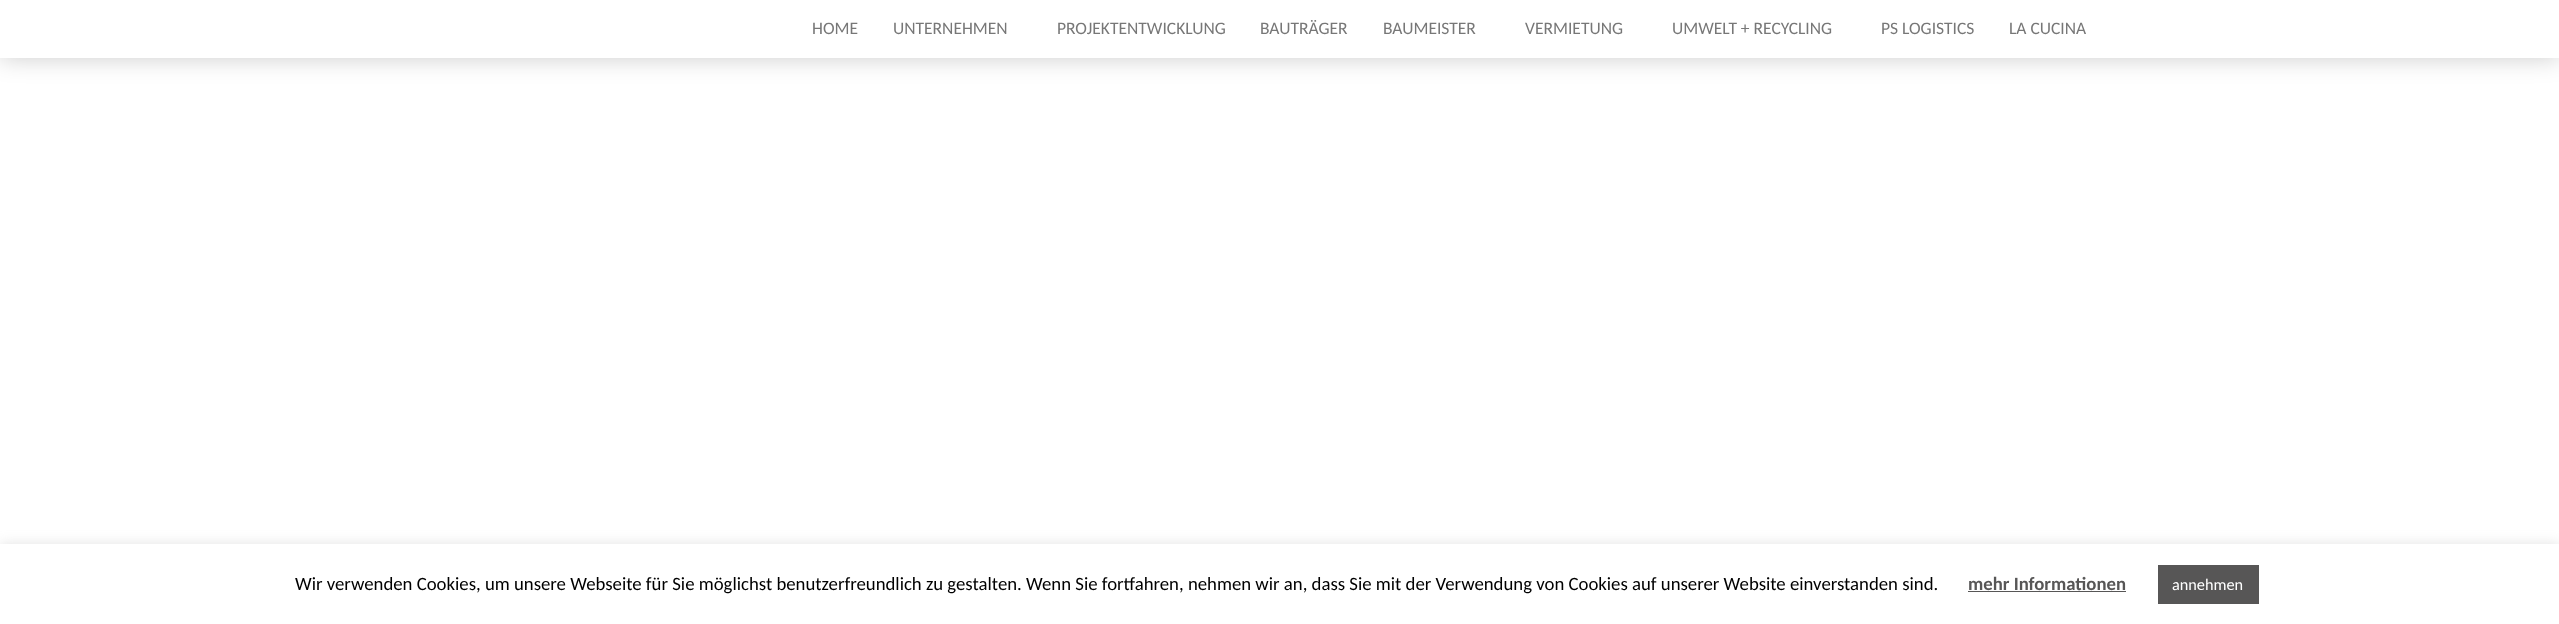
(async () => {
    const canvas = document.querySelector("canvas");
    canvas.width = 2559;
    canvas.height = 624;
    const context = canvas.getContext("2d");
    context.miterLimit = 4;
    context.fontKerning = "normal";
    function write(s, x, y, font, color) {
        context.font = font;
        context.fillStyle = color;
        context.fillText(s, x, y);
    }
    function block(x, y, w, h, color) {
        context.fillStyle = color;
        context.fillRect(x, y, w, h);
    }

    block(0, 0, 2559, 624, "rgb(255, 255, 255)");
    context.fillStyle = "rgba(0, 0, 0, 0.2)";
    context.filter = "blur(12.5px)";
    context.beginPath();
    context.rect(0, 0, 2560, 58);
    context.fill();
    context.filter = "none";
    block(0, 0, 2559, 58, "rgb(255, 255, 255)");
    write("HOME", 812, 34, "17.5px Carlito", "rgb(119, 119, 119)");
    write("UNTERNEHMEN", 893, 34, "17.5px Carlito", "rgb(119, 119, 119)");
    write("PROJEKTENTWICKLUNG", 1057, 34, "17.5px Carlito", "rgb(119, 119, 119)");
    write("BAUTRÄGER", 1260, 34, "17.5px Carlito", "rgb(119, 119, 119)");
    write("BAUMEISTER", 1383, 34, "17.5px Carlito", "rgb(119, 119, 119)");
    write("VERMIETUNG", 1525, 34, "17.5px Carlito", "rgb(119, 119, 119)");
    write("UMWELT + RECYCLING", 1672, 34, "17.5px Carlito", "rgb(119, 119, 119)");
    write("PS LOGISTICS", 1881, 34, "17.5px Carlito", "rgb(119, 119, 119)");
    write("LA CUCINA", 2009, 34, "17.5px Carlito", "rgb(119, 119, 119)");
    context.fillStyle = "rgba(172, 171, 171, 0.3)";
    context.filter = "blur(6px)";
    context.beginPath();
    context.rect(0, 543, 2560, 81);
    context.fill();
    context.filter = "none";
    block(0, 544, 2559, 80, "rgb(255, 255, 255)");
    write("Wir verwenden Cookies, um unsere Webseite für Sie möglichst benutzerfreundlich zu gestalten. Wenn Sie fortfahren, nehmen wir an, dass Sie mit der Verwendung von Cookies auf unserer Website einverstanden sind.", 295, 590, "18.75px Carlito", "rgb(0, 0, 0)");
    write("mehr Informationen", 1968, 590, "bold 18.75px Carlito", "rgb(87, 86, 86)");
    block(1968, 591, 158, 1, "rgb(87, 86, 86)");
    block(2158, 565, 101, 39, "rgb(87, 86, 86)");
    write("annehmen", 2172, 590, "16.25px Carlito", "rgb(255, 255, 255)");
})();
